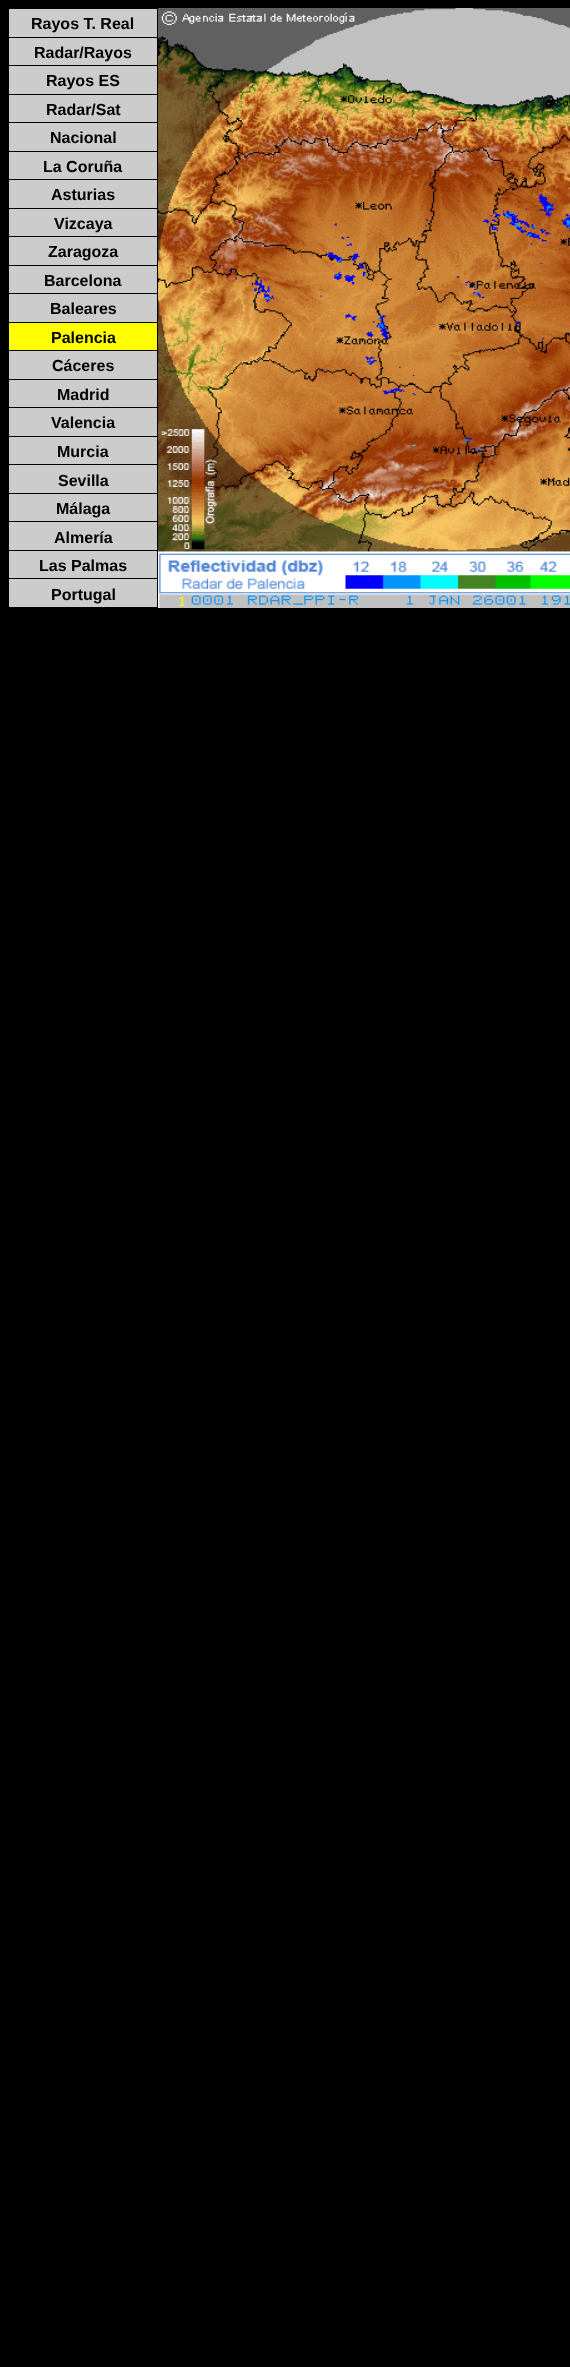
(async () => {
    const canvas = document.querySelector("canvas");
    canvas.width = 570;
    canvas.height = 2367;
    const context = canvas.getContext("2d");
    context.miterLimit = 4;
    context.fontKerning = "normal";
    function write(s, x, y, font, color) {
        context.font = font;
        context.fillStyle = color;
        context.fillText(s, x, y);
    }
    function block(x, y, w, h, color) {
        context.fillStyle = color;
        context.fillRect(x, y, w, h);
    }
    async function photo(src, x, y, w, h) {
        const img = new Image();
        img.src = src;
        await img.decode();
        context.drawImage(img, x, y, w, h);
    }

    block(0, 0, 570, 2367, "rgb(0, 0, 0)");
    block(9, 9, 148, 28, "rgb(204, 204, 204)");
    write("Rayos T. Real", 31, 29, "bold 16px Liberation Sans", "rgb(0, 0, 0)");
    block(9, 38, 148, 27, "rgb(204, 204, 204)");
    write("Radar/Rayos", 34, 58, "bold 16px Liberation Sans", "rgb(0, 0, 0)");
    block(9, 66, 148, 28, "rgb(204, 204, 204)");
    write("Rayos ES", 46, 86, "bold 16px Liberation Sans", "rgb(0, 0, 0)");
    block(9, 95, 148, 27, "rgb(204, 204, 204)");
    write("Radar/Sat", 46, 115, "bold 16px Liberation Sans", "rgb(0, 0, 0)");
    block(9, 123, 148, 28, "rgb(204, 204, 204)");
    write("Nacional", 50, 143, "bold 16px Liberation Sans", "rgb(0, 0, 0)");
    block(9, 152, 148, 27, "rgb(204, 204, 204)");
    write("La Coruña", 43, 172, "bold 16px Liberation Sans", "rgb(0, 0, 0)");
    block(9, 180, 148, 28, "rgb(204, 204, 204)");
    write("Asturias", 51, 200, "bold 16px Liberation Sans", "rgb(0, 0, 0)");
    block(9, 209, 148, 27, "rgb(204, 204, 204)");
    write("Vizcaya", 54, 229, "bold 16px Liberation Sans", "rgb(0, 0, 0)");
    block(9, 237, 148, 28, "rgb(204, 204, 204)");
    write("Zaragoza", 48, 257, "bold 16px Liberation Sans", "rgb(0, 0, 0)");
    block(9, 266, 148, 27, "rgb(204, 204, 204)");
    write("Barcelona", 44, 286, "bold 16px Liberation Sans", "rgb(0, 0, 0)");
    block(9, 294, 148, 28, "rgb(204, 204, 204)");
    write("Baleares", 50, 314, "bold 16px Liberation Sans", "rgb(0, 0, 0)");
    block(9, 323, 148, 27, "rgb(255, 255, 0)");
    write("Palencia", 51, 343, "bold 16px Liberation Sans", "rgb(0, 0, 0)");
    block(9, 351, 148, 28, "rgb(204, 204, 204)");
    write("Cáceres", 52, 371, "bold 16px Liberation Sans", "rgb(0, 0, 0)");
    block(9, 380, 148, 27, "rgb(204, 204, 204)");
    write("Madrid", 57, 400, "bold 16px Liberation Sans", "rgb(0, 0, 0)");
    block(9, 408, 148, 28, "rgb(204, 204, 204)");
    write("Valencia", 51, 428, "bold 16px Liberation Sans", "rgb(0, 0, 0)");
    block(9, 437, 148, 27, "rgb(204, 204, 204)");
    write("Murcia", 57, 457, "bold 16px Liberation Sans", "rgb(0, 0, 0)");
    block(9, 465, 148, 28, "rgb(204, 204, 204)");
    write("Sevilla", 58, 486, "bold 16px Liberation Sans", "rgb(0, 0, 0)");
    block(9, 494, 148, 27, "rgb(204, 204, 204)");
    write("Málaga", 56, 514, "bold 16px Liberation Sans", "rgb(0, 0, 0)");
    block(9, 522, 148, 28, "rgb(204, 204, 204)");
    write("Almería", 54, 543, "bold 16px Liberation Sans", "rgb(0, 0, 0)");
    block(9, 551, 148, 27, "rgb(204, 204, 204)");
    write("Las Palmas", 39, 571, "bold 16px Liberation Sans", "rgb(0, 0, 0)");
    block(9, 579, 148, 28, "rgb(204, 204, 204)");
    write("Portugal", 51, 600, "bold 16px Liberation Sans", "rgb(0, 0, 0)");
    await photo("media/1.png", 158, 8, 412, 600);
})();
